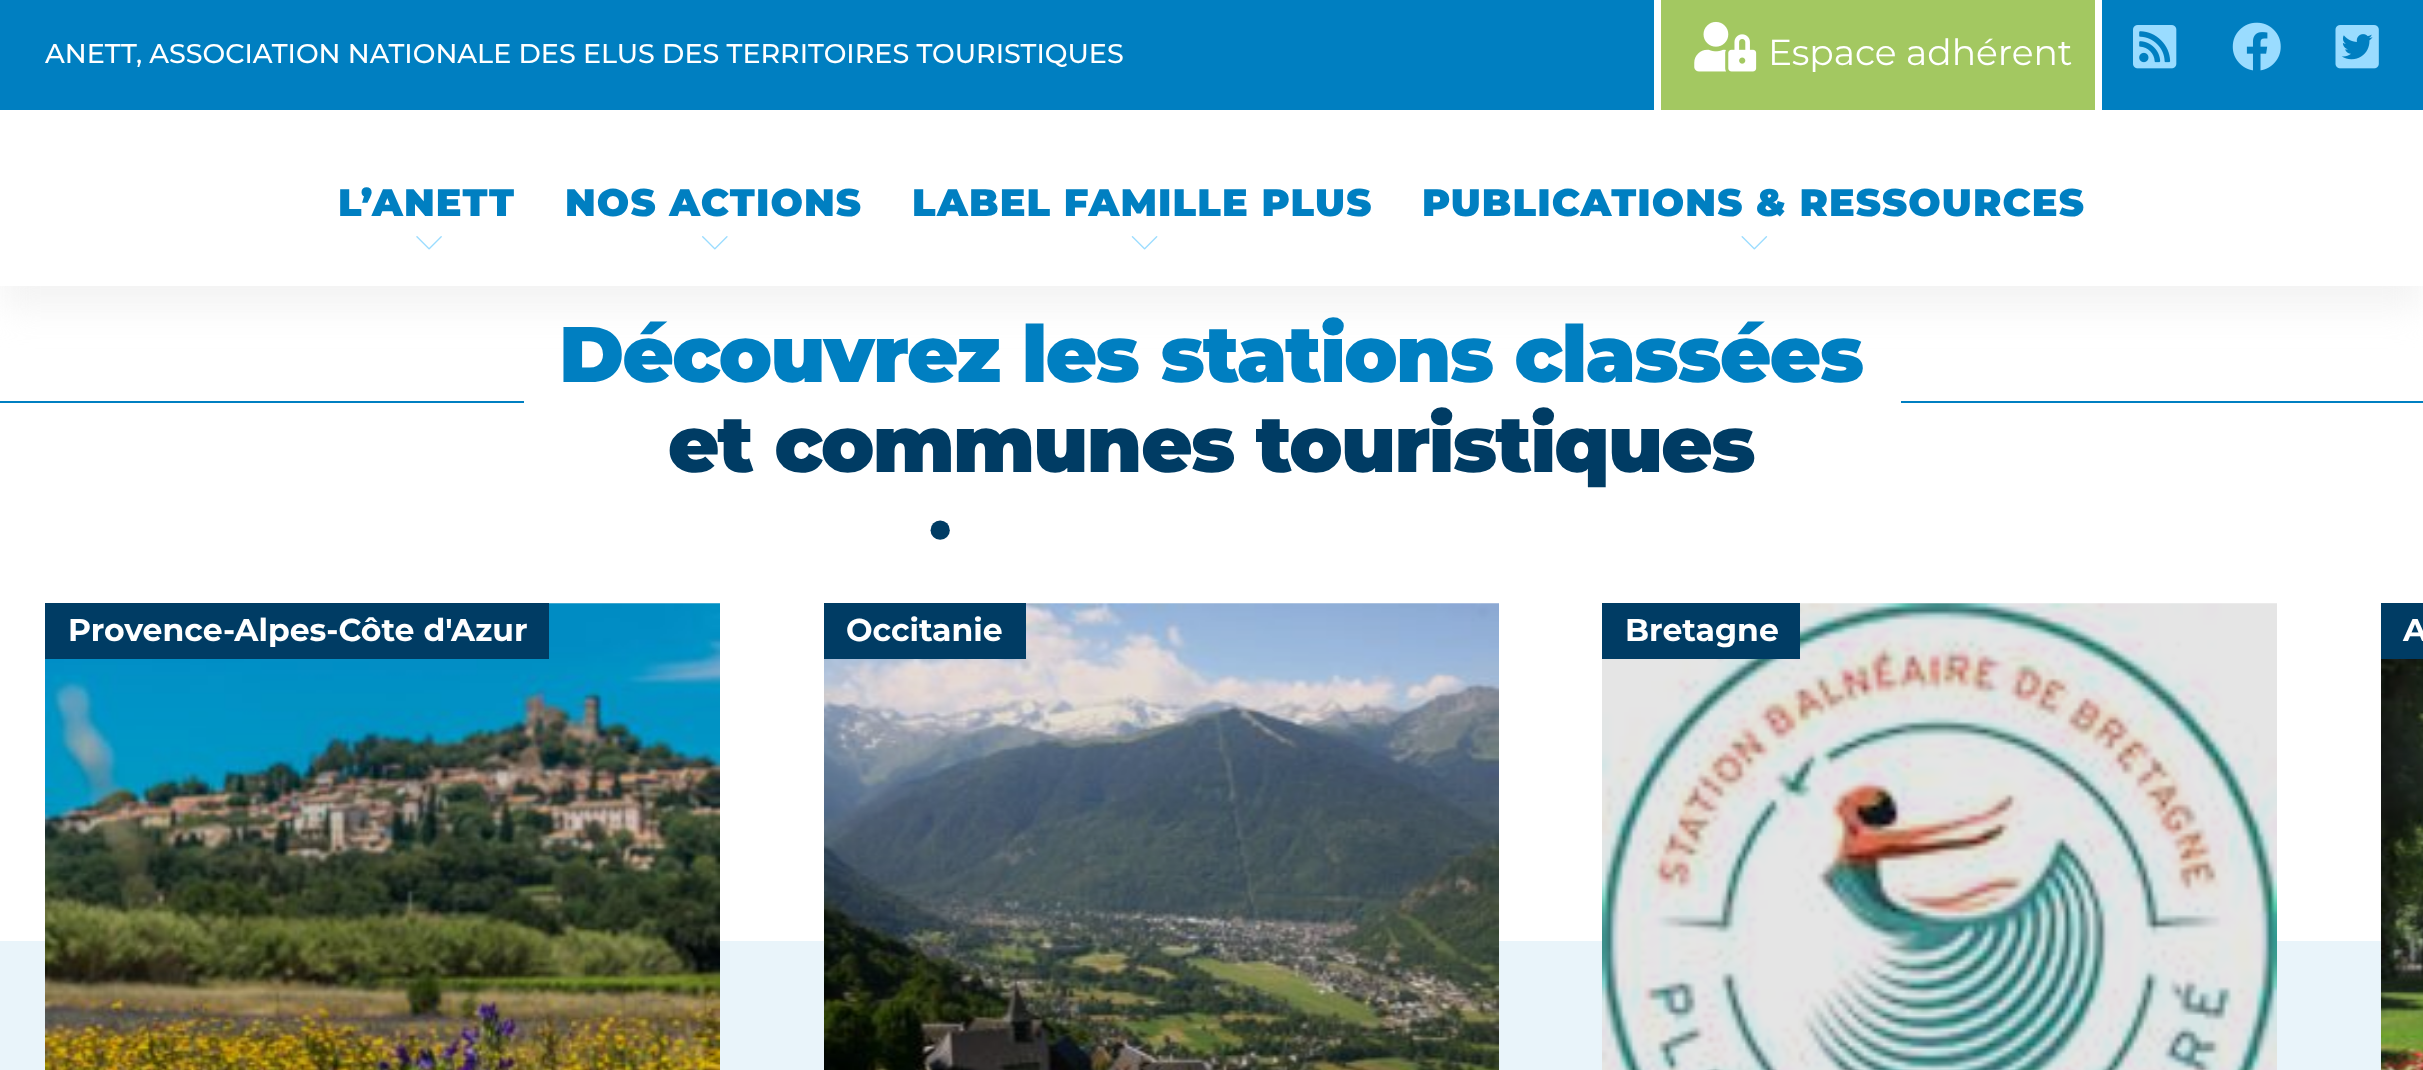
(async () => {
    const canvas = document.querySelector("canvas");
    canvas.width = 2423;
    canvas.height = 1070;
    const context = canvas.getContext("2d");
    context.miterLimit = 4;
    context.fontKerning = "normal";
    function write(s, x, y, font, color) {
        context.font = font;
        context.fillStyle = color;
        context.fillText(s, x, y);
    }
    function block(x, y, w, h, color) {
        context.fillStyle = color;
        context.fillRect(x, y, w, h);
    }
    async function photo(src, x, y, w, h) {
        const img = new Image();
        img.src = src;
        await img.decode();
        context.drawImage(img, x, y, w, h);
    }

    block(0, 0, 2423, 1070, "rgb(255, 255, 255)");
    context.fillStyle = "rgba(240, 240, 240, 0.8)";
    context.filter = "blur(17px)";
    context.beginPath();
    context.rect(0, 20, 2423, 288);
    context.fill();
    context.filter = "none";
    block(0, 110, 2423, 176, "rgb(255, 255, 255)");
    block(0, 0, 2423, 110, "rgb(0, 127, 193)");
    write("ANETT, ASSOCIATION NATIONALE DES ELUS DES TERRITOIRES TOURISTIQUES", 45, 63, "500 27px Montserrat", "rgb(255, 255, 255)");
    block(1661, 0, 434, 110, "rgb(163, 200, 97)");
    block(2095, 0, 7, 110, "rgb(255, 255, 255)");
    block(1654, 0, 7, 110, "rgb(255, 255, 255)");
    await photo("media/1.png", 1694, 21, 63, 51);
    write("Espace adhérent", 1768, 65, "36px Montserrat", "rgb(255, 255, 255)");
    await photo("media/2.png", 2133, 25, 44, 44);
    await photo("media/3.png", 2232, 22, 49, 49);
    await photo("media/4.png", 2335, 25, 44, 44);
    context.letterSpacing = "1.1px";
    write("L’ANETT", 338, 216, "900 38.25px Montserrat", "rgb(0, 127, 193)");
    await photo("media/5.png", 416, 236, 26, 14);
    write("NOS ACTIONS", 565, 216, "900 38.25px Montserrat", "rgb(0, 127, 193)");
    await photo("media/6.png", 702, 236, 26, 14);
    write("LABEL FAMILLE PLUS", 912, 216, "900 38.25px Montserrat", "rgb(0, 127, 193)");
    await photo("media/7.png", 1131, 236, 27, 14);
    write("PUBLICATIONS & RESSOURCES", 1422, 216, "900 38.25px Montserrat", "rgb(0, 127, 193)");
    await photo("media/8.png", 1741, 236, 27, 14);
    context.letterSpacing = "-1.6px";
    write("Découvrez les stations classées", 559, 382, "900 78.75px Montserrat", "rgb(0, 127, 193)");
    block(0, 401, 524, 2, "rgb(0, 127, 193)");
    block(1901, 401, 522, 2, "rgb(0, 127, 193)");
    write("et communes touristiques", 668, 472, "900 78.75px Montserrat", "rgb(0, 60, 100)");
    context.letterSpacing = "2px";
    write("•", 926, 557, "81px Liberation Serif", "rgb(0, 60, 100)");
    block(0, 941, 2381, 129, "rgb(233, 244, 250)");
    await photo("media/9.png", 45, 603, 675, 467);
    block(45, 603, 504, 56, "rgb(0, 60, 100)");
    context.letterSpacing = "0px";
    write("Provence-Alpes-Côte d'Azur", 68, 641, "bold 31.5px Montserrat", "rgb(255, 255, 255)");
    await photo("media/10.png", 824, 603, 675, 467);
    block(824, 603, 202, 56, "rgb(0, 60, 100)");
    write("Occitanie", 846, 641, "bold 31.5px Montserrat", "rgb(255, 255, 255)");
    await photo("media/11.png", 1602, 603, 675, 467);
    block(1602, 603, 198, 56, "rgb(0, 60, 100)");
    write("Bretagne", 1625, 641, "bold 31.5px Montserrat", "rgb(255, 255, 255)");
    block(2381, 603, 42, 56, "rgb(0, 60, 100)");
    write("A", 2403, 641, "bold 31.5px Montserrat", "rgb(255, 255, 255)");
    await photo("media/12.png", 2381, 659, 42, 411);
})();
